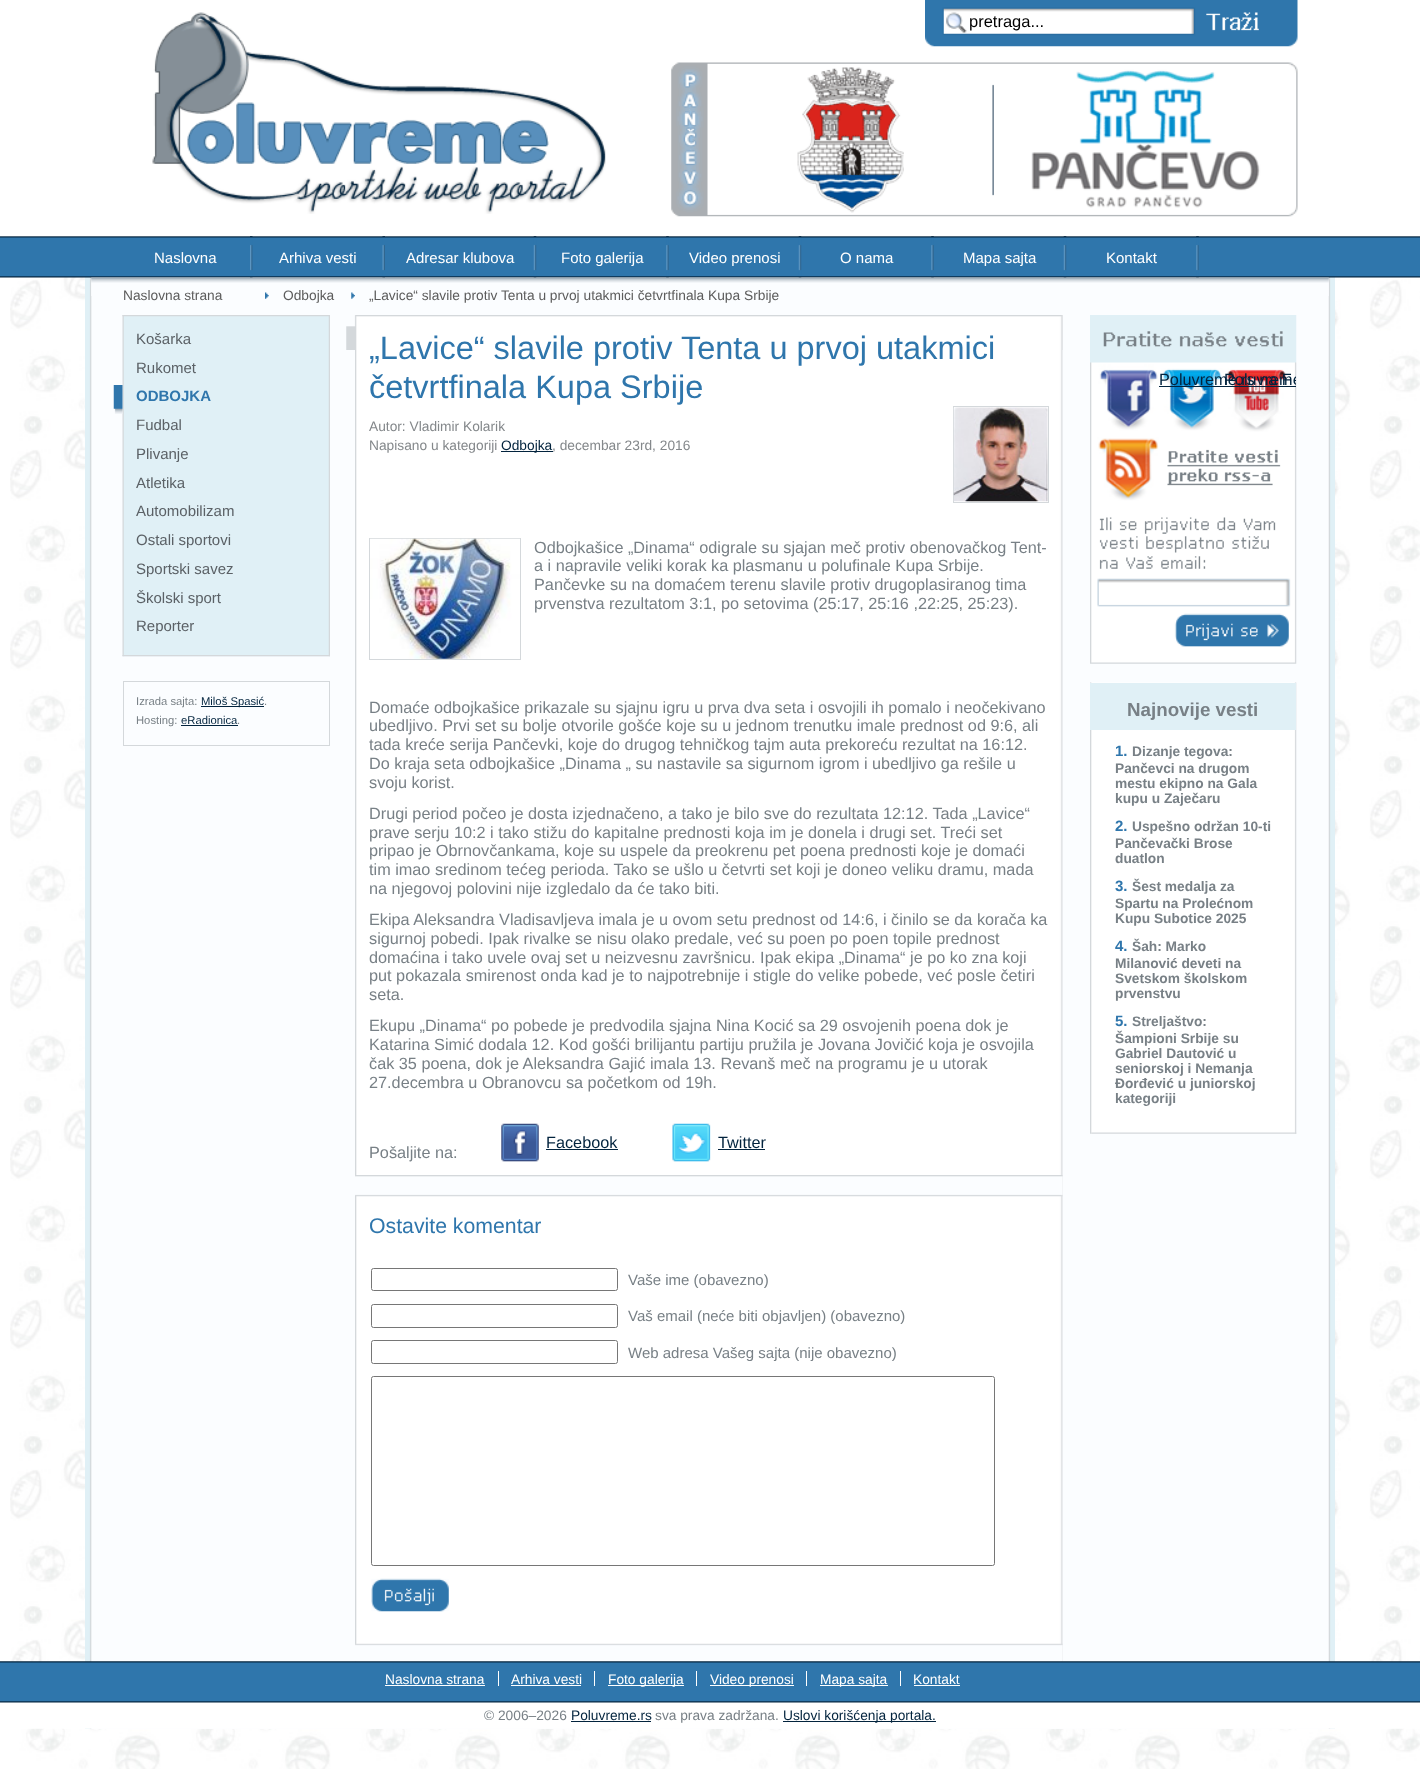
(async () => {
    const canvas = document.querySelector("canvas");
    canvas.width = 1420;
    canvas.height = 1769;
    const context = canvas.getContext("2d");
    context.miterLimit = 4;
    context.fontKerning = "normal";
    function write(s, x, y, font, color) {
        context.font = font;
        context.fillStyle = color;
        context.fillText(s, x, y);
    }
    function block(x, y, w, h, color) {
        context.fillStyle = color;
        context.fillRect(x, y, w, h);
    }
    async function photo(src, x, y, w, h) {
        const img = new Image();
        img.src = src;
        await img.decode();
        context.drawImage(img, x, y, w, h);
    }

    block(0, 0, 1420, 1769, "rgb(255, 255, 255)");
    await photo("media/1.png", 10, 277, 1410, 1492);
    await photo("media/2.png", 0, 14, 1420, 264);
    await photo("media/3.png", 0, 1661, 1420, 68);
    await photo("media/4.png", 85, 277, 1250, 1452);
    await photo("media/5.png", 85, 0, 1250, 278);
    await photo("media/6.png", 152, 12, 454, 202);
    await photo("media/7.png", 925, 0, 373, 47);
    write("pretraga...", 969, 27, "16.5px Liberation Sans", "rgb(0, 0, 0)");
    await photo("media/8.png", 671, 62, 627, 155);
    await photo("media/9.png", 250, 236, 3, 42);
    write("Naslovna", 154, 263, "15px Liberation Sans", "rgb(255, 255, 255)");
    await photo("media/10.png", 382, 236, 3, 42);
    write("Arhiva vesti", 279, 263, "15px Liberation Sans", "rgb(255, 255, 255)");
    await photo("media/11.png", 533, 236, 4, 42);
    write("Adresar klubova", 406, 263, "15px Liberation Sans", "rgb(255, 255, 255)");
    await photo("media/12.png", 666, 236, 3, 42);
    write("Foto galerija", 561, 263, "15px Liberation Sans", "rgb(255, 255, 255)");
    await photo("media/11.png", 798, 236, 4, 42);
    write("Video prenosi", 689, 263, "15px Liberation Sans", "rgb(255, 255, 255)");
    await photo("media/12.png", 931, 236, 3, 42);
    write("O nama", 840, 263, "15px Liberation Sans", "rgb(255, 255, 255)");
    await photo("media/11.png", 1063, 236, 4, 42);
    write("Mapa sajta", 963, 263, "15px Liberation Sans", "rgb(255, 255, 255)");
    await photo("media/12.png", 1196, 236, 3, 42);
    write("Kontakt", 1106, 263, "15px Liberation Sans", "rgb(255, 255, 255)");
    await photo("media/13.png", 91, 277, 1238, 19);
    write("Naslovna strana", 123, 300, "13.75px Liberation Sans", "rgb(92, 92, 92)");
    await photo("media/14.png", 265, 292, 4, 7);
    write("Odbojka", 283, 300, "13.75px Liberation Sans", "rgb(92, 92, 92)");
    await photo("media/15.png", 351, 292, 4, 7);
    write("„Lavice“ slavile protiv Tenta u prvoj utakmici četvrtfinala Kupa Srbije", 369, 300, "13.75px Liberation Sans", "rgb(92, 92, 92)");
    await photo("media/16.png", 122, 315, 208, 342);
    await photo("media/17.png", 122, 315, 207, 2);
    write("Košarka", 136, 344, "15px Liberation Sans", "rgb(91, 97, 102)");
    write("Rukomet", 136, 373, "15px Liberation Sans", "rgb(91, 97, 102)");
    await photo("media/18.png", 113, 385, 10, 29);
    write("ODBOJKA", 136, 401, "bold 15px Liberation Sans", "rgb(47, 118, 172)");
    write("Fudbal", 136, 430, "15px Liberation Sans", "rgb(91, 97, 102)");
    write("Plivanje", 136, 459, "15px Liberation Sans", "rgb(91, 97, 102)");
    write("Atletika", 136, 488, "15px Liberation Sans", "rgb(91, 97, 102)");
    write("Automobilizam", 136, 516, "15px Liberation Sans", "rgb(91, 97, 102)");
    write("Ostali sportovi", 136, 545, "15px Liberation Sans", "rgb(91, 97, 102)");
    write("Sportski savez", 136, 574, "15px Liberation Sans", "rgb(91, 97, 102)");
    write("Školski sport", 136, 603, "15px Liberation Sans", "rgb(91, 97, 102)");
    write("Reporter", 136, 631, "15px Liberation Sans", "rgb(91, 97, 102)");
    await photo("media/19.png", 122, 655, 208, 2);
    context.strokeStyle = "rgb(212, 216, 219)";
    context.strokeRect(123.5, 681.5, 206, 64);
    write("Izrada sajta:", 136, 705, "11.25px Liberation Sans", "rgb(120, 128, 134)");
    block(201, 706, 63, 1, "rgb(2, 35, 61)");
    write("Miloš Spasić", 201, 705, "11.25px Liberation Sans", "rgb(2, 35, 61)");
    write(".", 264, 705, "11.25px Liberation Sans", "rgb(120, 128, 134)");
    write("Hosting:", 136, 724, "11.25px Liberation Sans", "rgb(120, 128, 134)");
    write("eRadionica", 181, 724, "11.25px Liberation Sans", "rgb(2, 35, 61)");
    block(181, 725, 57, 1, "rgb(2, 35, 61)");
    write(".", 237, 724, "11.25px Liberation Sans", "rgb(120, 128, 134)");
    await photo("media/20.png", 355, 315, 708, 1347);
    await photo("media/21.png", 346, 315, 717, 35);
    write("„Lavice“ slavile protiv Tenta u prvoj utakmici", 369, 359, "32.5px Liberation Sans", "rgb(47, 118, 172)");
    write("četvrtfinala Kupa Srbije", 369, 398, "32.5px Liberation Sans", "rgb(47, 118, 172)");
    write("Autor: Vladimir Kolarik", 369, 431, "13.75px Liberation Sans", "rgb(132, 136, 139)");
    context.strokeRect(953.5, 406.5, 95, 96);
    await photo("media/22.png", 953, 407, 95, 95);
    write("Napisano u kategoriji", 369, 450, "13.75px Liberation Sans", "rgb(132, 136, 139)");
    block(501, 451, 52, 1, "rgb(2, 35, 61)");
    write("Odbojka", 501, 450, "13.75px Liberation Sans", "rgb(2, 35, 61)");
    write(", decembar 23rd, 2016", 552, 450, "13.75px Liberation Sans", "rgb(132, 136, 139)");
    context.strokeRect(369.5, 538.5, 151, 121);
    await photo("media/23.png", 370, 538, 150, 121);
    write("Odbojkašice „Dinama“ odigrale su sjajan meč protiv obenovačkog Tent-", 534, 553, "16.25px Liberation Sans", "rgb(120, 128, 134)");
    write("a i napravile veliki korak ka plasmanu u polufinale Kupa Srbije.", 534, 571, "16.25px Liberation Sans", "rgb(120, 128, 134)");
    write("Pančevke su na domaćem terenu slavile protiv drugoplasiranog tima", 534, 590, "16.25px Liberation Sans", "rgb(120, 128, 134)");
    write("prvenstva rezultatom 3:1, po setovima (25:17, 25:16 ,22:25, 25:23).", 534, 609, "16.25px Liberation Sans", "rgb(120, 128, 134)");
    write("Domaće odbojkašice prikazale su sjajnu igru u prva dva seta i osvojili ih pomalo i neočekivano", 369, 713, "16.25px Liberation Sans", "rgb(120, 128, 134)");
    write("ubedljivo. Prvi set su bolje otvorile gošće koje su u jednom trenutku imale prednost od 9:6, ali", 369, 731, "16.25px Liberation Sans", "rgb(120, 128, 134)");
    write("tada kreće serija Pančevki, koje do drugog tehničkog tajm auta prekoreću rezultat na 16:12.", 369, 750, "16.25px Liberation Sans", "rgb(120, 128, 134)");
    write("Do kraja seta odbojkašice „Dinama „ su nastavile sa sigurnom igrom i ubedljivo ga rešile u", 369, 769, "16.25px Liberation Sans", "rgb(120, 128, 134)");
    write("svoju korist.", 369, 788, "16.25px Liberation Sans", "rgb(120, 128, 134)");
    write("Drugi period počeo je dosta izjednačeno, a tako je bilo sve do rezultata 12:12. Tada „Lavice“", 369, 819, "16.25px Liberation Sans", "rgb(120, 128, 134)");
    write("prave serju 10:2 i tako stižu do kapitalne prednosti koja im je donela i drugi set. Treći set", 369, 838, "16.25px Liberation Sans", "rgb(120, 128, 134)");
    write("pripao je Obrnovčankama, koje su uspele da preokrenu pet poena prednosti koje je domaći", 369, 856, "16.25px Liberation Sans", "rgb(120, 128, 134)");
    write("tim imao sredinom tećeg perioda. Tako se ušlo u četvrti set koji je doneo veliku dramu, mada", 369, 875, "16.25px Liberation Sans", "rgb(120, 128, 134)");
    write("na njegovoj polovini nije izgledalo da će tako biti.", 369, 894, "16.25px Liberation Sans", "rgb(120, 128, 134)");
    write("Ekipa Aleksandra Vladisavljeva imala je u ovom setu prednost od 14:6, i činilo se da korača ka", 369, 925, "16.25px Liberation Sans", "rgb(120, 128, 134)");
    write("sigurnoj pobedi. Ipak rivalke se nisu olako predale, već su poen po poen topile prednost", 369, 944, "16.25px Liberation Sans", "rgb(120, 128, 134)");
    write("domaćina i tako uvele ovaj set u neizvesnu završnicu. Ipak ekipa „Dinama“ je po ko zna koji", 369, 963, "16.25px Liberation Sans", "rgb(120, 128, 134)");
    write("put pokazala smirenost onda kad je to najpotrebnije i stigle do velike pobede, već posle četiri", 369, 981, "16.25px Liberation Sans", "rgb(120, 128, 134)");
    write("seta.", 369, 1000, "16.25px Liberation Sans", "rgb(120, 128, 134)");
    write("Ekupu „Dinama“ po pobede je predvodila sjajna Nina Kocić sa 29 osvojenih poena dok je", 369, 1031, "16.25px Liberation Sans", "rgb(120, 128, 134)");
    write("Katarina Simić dodala 12. Kod gošći brilijantu partiju pružila je Jovana Jovičić koja je osvojila", 369, 1050, "16.25px Liberation Sans", "rgb(120, 128, 134)");
    write("čak 35 poena, dok je Aleksandra Gajić imala 13. Revanš meč na programu je u utorak", 369, 1069, "16.25px Liberation Sans", "rgb(120, 128, 134)");
    write("27.decembra u Obranovcu sa početkom od 19h.", 369, 1088, "16.25px Liberation Sans", "rgb(120, 128, 134)");
    await photo("media/24.png", 501, 1123, 38, 39);
    write("Facebook", 546, 1148, "16.25px Liberation Sans", "rgb(2, 35, 61)");
    block(546, 1149, 72, 1, "rgb(2, 35, 61)");
    await photo("media/25.png", 672, 1123, 39, 39);
    write("Twitter", 718, 1148, "16.25px Liberation Sans", "rgb(2, 35, 61)");
    block(718, 1149, 47, 1, "rgb(2, 35, 61)");
    write("Pošaljite na:", 369, 1158, "16.25px Liberation Sans", "rgb(120, 128, 134)");
    await photo("media/26.png", 355, 1175, 708, 22);
    write("Ostavite komentar", 369, 1233, "21.25px Liberation Sans", "rgb(47, 118, 172)");
    await photo("media/27.png", 355, 1643, 708, 18);
    context.beginPath();
    context.roundRect(371.5, 1268.5, 246, 22, 2);
    context.strokeStyle = "rgb(118, 118, 118)";
    context.stroke();
    write("Vaše ime (obavezno)", 628, 1285, "15px Liberation Sans", "rgb(120, 128, 134)");
    context.beginPath();
    context.roundRect(371.5, 1304.5, 246, 23, 2);
    context.stroke();
    write("Vaš email (neće biti objavljen) (obavezno)", 628, 1321, "15px Liberation Sans", "rgb(120, 128, 134)");
    context.beginPath();
    context.roundRect(371.5, 1340.5, 246, 23, 2);
    context.stroke();
    write("Web adresa Vašeg sajta (nije obavezno)", 628, 1358, "15px Liberation Sans", "rgb(120, 128, 134)");
    context.beginPath();
    context.roundRect(371.5, 1376.5, 623, 189, 2);
    context.stroke();
    await photo("media/28.png", 371, 1578, 78, 34);
    await photo("media/29.png", 1090, 315, 207, 349);
    write("Poluvreme.rs na F", 1159, 385, "16.25px Liberation Sans", "rgb(2, 35, 61)");
    block(1159, 386, 137, 1, "rgb(2, 35, 61)");
    context.save();
    context.beginPath();
    context.rect(1090, 315, 206, 349);
    context.clip();
    write("Poluvreme", 1224, 385, "16.25px Liberation Sans", "rgb(2, 35, 61)");
    context.restore();
    await photo("media/30.png", 1090, 682, 207, 452);
    await photo("media/31.png", 1091, 1132, 206, 2);
    block(1090, 683, 206, 47, "rgb(224, 240, 246)");
    write("Najnovije vesti", 1127, 716, "bold 18.75px Liberation Sans", "rgb(120, 128, 134)");
    write("1.", 1115, 756, "bold 15px Liberation Sans", "rgb(47, 118, 172)");
    write("Dizanje tegova:", 1132, 756, "bold 13.75px Liberation Sans", "rgb(120, 128, 134)");
    write("Pančevci na drugom", 1115, 773, "bold 13.75px Liberation Sans", "rgb(120, 128, 134)");
    write("mestu ekipno na Gala", 1115, 788, "bold 13.75px Liberation Sans", "rgb(120, 128, 134)");
    write("kupu u Zaječaru", 1115, 803, "bold 13.75px Liberation Sans", "rgb(120, 128, 134)");
    write("2.", 1115, 831, "bold 15px Liberation Sans", "rgb(47, 118, 172)");
    write("Uspešno održan 10-ti", 1132, 831, "bold 13.75px Liberation Sans", "rgb(120, 128, 134)");
    write("Pančevački Brose", 1115, 848, "bold 13.75px Liberation Sans", "rgb(120, 128, 134)");
    write("duatlon", 1115, 863, "bold 13.75px Liberation Sans", "rgb(120, 128, 134)");
    write("3.", 1115, 891, "bold 15px Liberation Sans", "rgb(47, 118, 172)");
    write("Šest medalja za", 1132, 891, "bold 13.75px Liberation Sans", "rgb(120, 128, 134)");
    write("Spartu na Prolećnom", 1115, 908, "bold 13.75px Liberation Sans", "rgb(120, 128, 134)");
    write("Kupu Subotice 2025", 1115, 923, "bold 13.75px Liberation Sans", "rgb(120, 128, 134)");
    write("4.", 1115, 951, "bold 15px Liberation Sans", "rgb(47, 118, 172)");
    write("Šah: Marko", 1132, 951, "bold 13.75px Liberation Sans", "rgb(120, 128, 134)");
    write("Milanović deveti na", 1115, 968, "bold 13.75px Liberation Sans", "rgb(120, 128, 134)");
    write("Svetskom školskom", 1115, 983, "bold 13.75px Liberation Sans", "rgb(120, 128, 134)");
    write("prvenstvu", 1115, 998, "bold 13.75px Liberation Sans", "rgb(120, 128, 134)");
    write("5.", 1115, 1026, "bold 15px Liberation Sans", "rgb(47, 118, 172)");
    write("Streljaštvo:", 1132, 1026, "bold 13.75px Liberation Sans", "rgb(120, 128, 134)");
    write("Šampioni Srbije su", 1115, 1043, "bold 13.75px Liberation Sans", "rgb(120, 128, 134)");
    write("Gabriel Dautović u", 1115, 1058, "bold 13.75px Liberation Sans", "rgb(120, 128, 134)");
    write("seniorskoj i Nemanja", 1115, 1073, "bold 13.75px Liberation Sans", "rgb(120, 128, 134)");
    write("Đorđević u juniorskoj", 1115, 1088, "bold 13.75px Liberation Sans", "rgb(120, 128, 134)");
    write("kategoriji", 1115, 1103, "bold 13.75px Liberation Sans", "rgb(120, 128, 134)");
    await photo("media/32.png", 85, 1661, 1250, 68);
    block(498, 1671, 1, 15, "rgb(255, 255, 255)");
    write("Naslovna strana", 385, 1684, "13.75px Liberation Sans", "rgb(255, 255, 255)");
    block(385, 1685, 100, 1, "rgb(255, 255, 255)");
    block(594, 1671, 1, 15, "rgb(255, 255, 255)");
    write("Arhiva vesti", 511, 1684, "13.75px Liberation Sans", "rgb(255, 255, 255)");
    block(511, 1685, 70, 1, "rgb(255, 255, 255)");
    block(696, 1671, 1, 15, "rgb(255, 255, 255)");
    block(608, 1685, 76, 1, "rgb(255, 255, 255)");
    write("Foto galerija", 608, 1684, "13.75px Liberation Sans", "rgb(255, 255, 255)");
    block(806, 1671, 1, 15, "rgb(255, 255, 255)");
    block(710, 1685, 84, 1, "rgb(255, 255, 255)");
    write("Video prenosi", 710, 1684, "13.75px Liberation Sans", "rgb(255, 255, 255)");
    block(900, 1671, 1, 15, "rgb(255, 255, 255)");
    block(820, 1685, 68, 1, "rgb(255, 255, 255)");
    write("Mapa sajta", 820, 1684, "13.75px Liberation Sans", "rgb(255, 255, 255)");
    write("Kontakt", 913, 1684, "13.75px Liberation Sans", "rgb(255, 255, 255)");
    block(914, 1685, 46, 1, "rgb(255, 255, 255)");
    write("© 2006–2026", 484, 1720, "13.75px Liberation Sans", "rgb(120, 128, 134)");
    write("Poluvreme.rs", 571, 1720, "13.75px Liberation Sans", "rgb(2, 35, 61)");
    block(571, 1721, 80, 1, "rgb(2, 35, 61)");
    write("sva prava zadržana.", 655, 1720, "13.75px Liberation Sans", "rgb(120, 128, 134)");
    block(783, 1721, 153, 1, "rgb(2, 35, 61)");
    write("Uslovi korišćenja portala.", 783, 1720, "13.75px Liberation Sans", "rgb(2, 35, 61)");
})();
